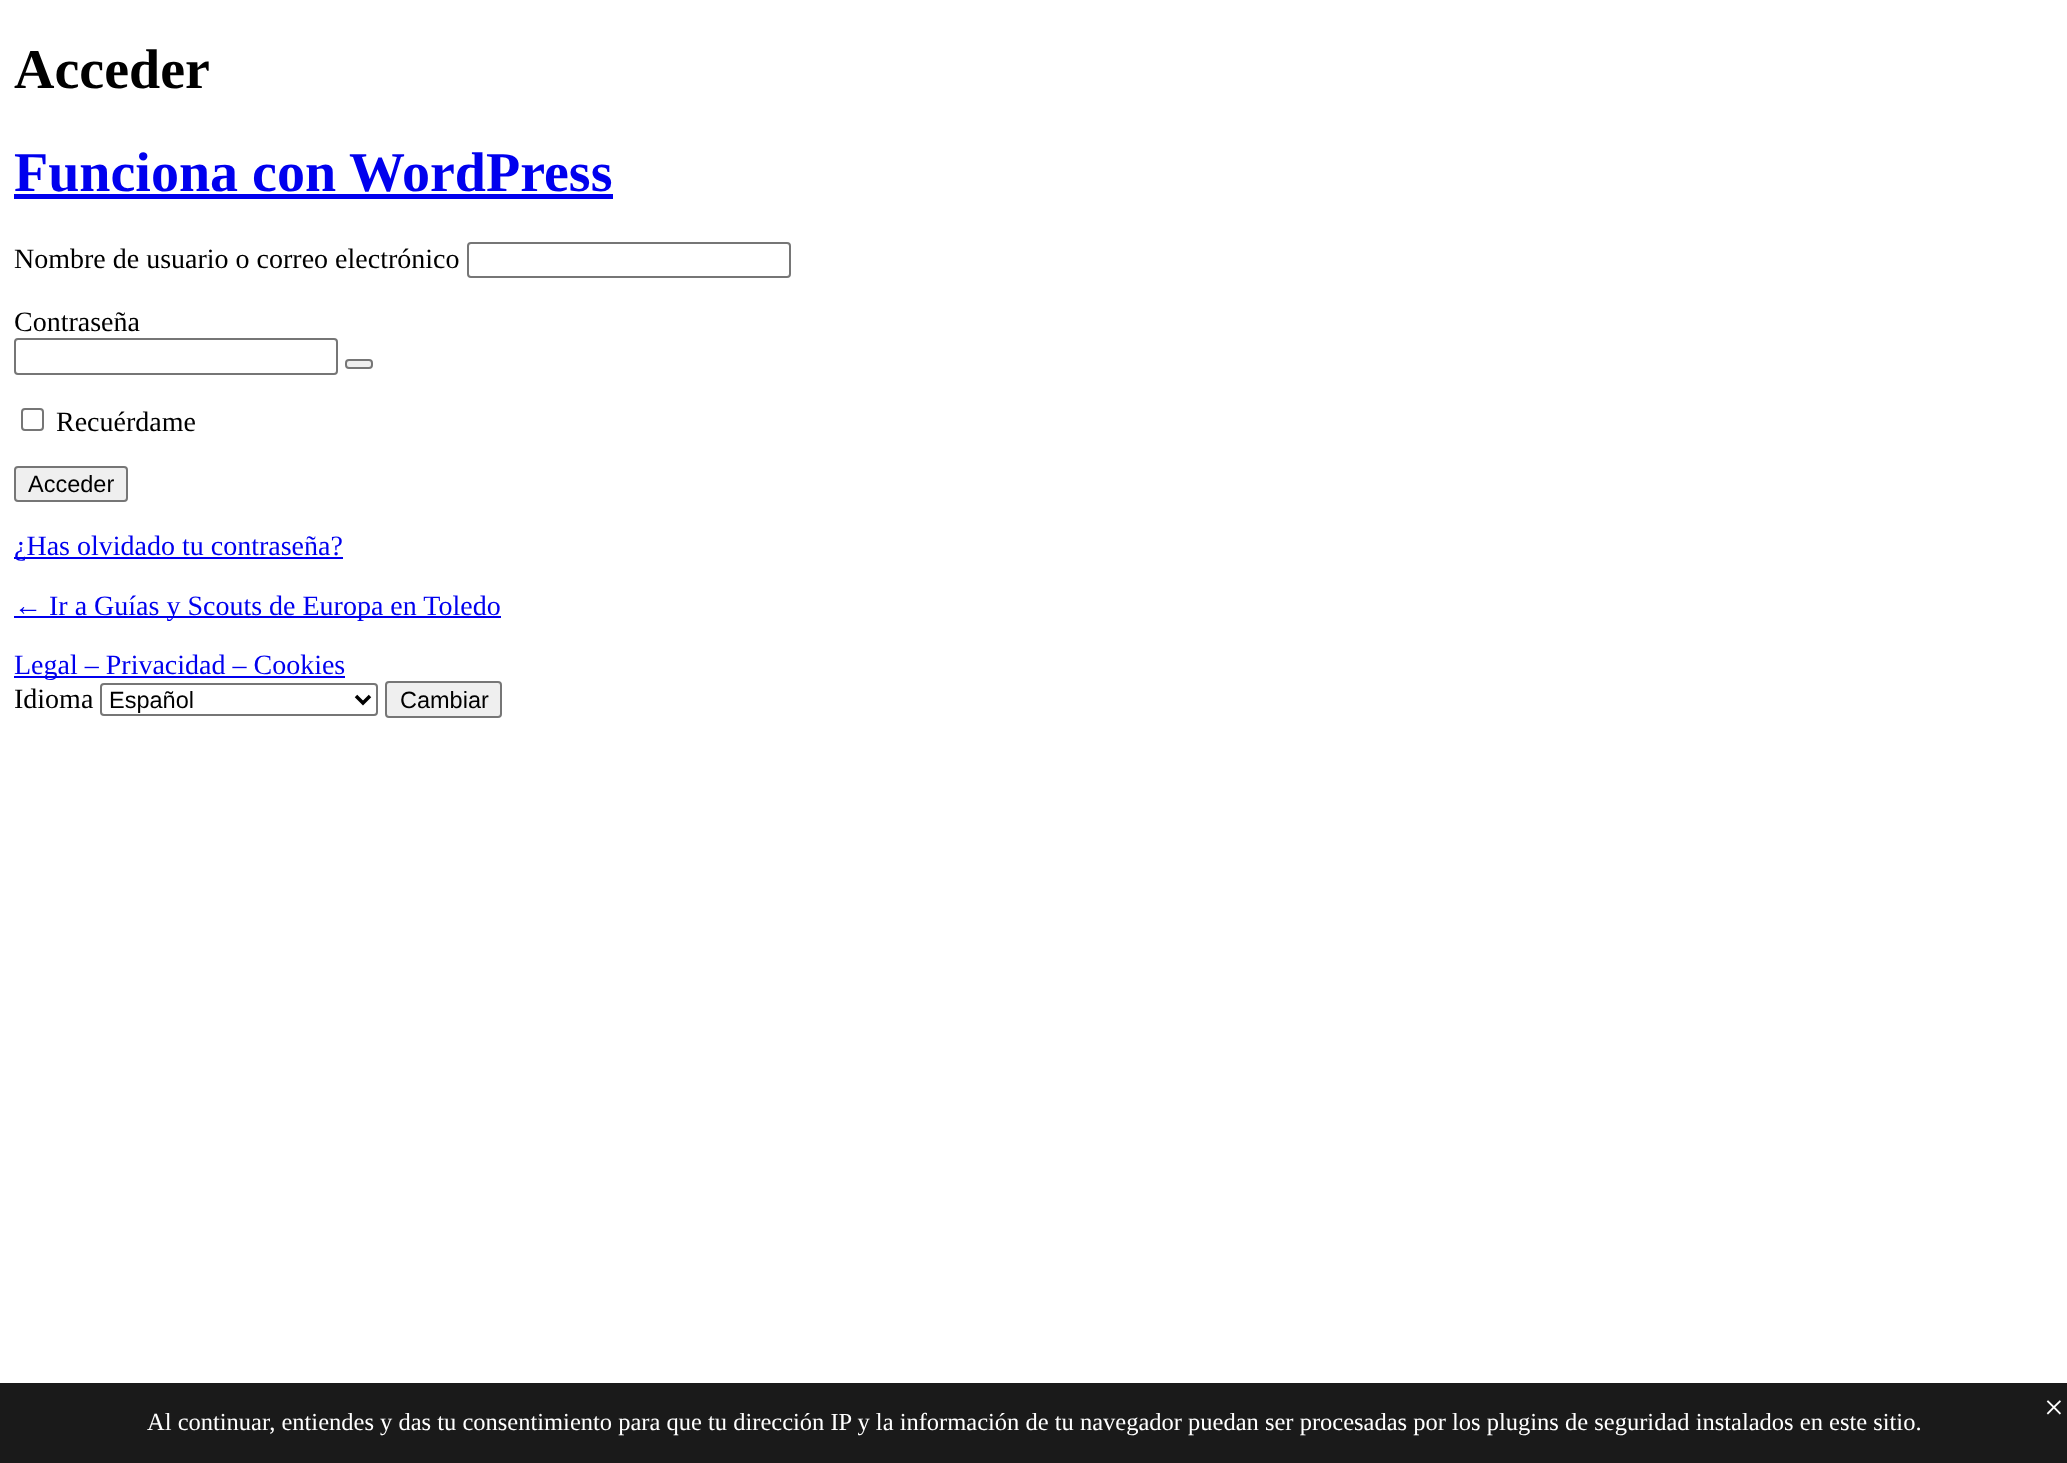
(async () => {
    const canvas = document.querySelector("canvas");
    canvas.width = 2067;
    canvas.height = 1463;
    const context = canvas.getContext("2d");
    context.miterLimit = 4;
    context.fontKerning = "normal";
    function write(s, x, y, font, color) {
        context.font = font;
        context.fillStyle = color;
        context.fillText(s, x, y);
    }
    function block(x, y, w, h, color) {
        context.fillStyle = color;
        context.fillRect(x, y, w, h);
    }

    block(0, 0, 2067, 1463, "rgb(255, 255, 255)");
    write("Acceder", 14, 88, "bold 56px Liberation Serif", "rgb(0, 0, 0)");
    write("Funciona con WordPress", 14, 191, "bold 56px Liberation Serif", "rgb(0, 0, 238)");
    block(14, 194, 599, 5, "rgb(0, 0, 238)");
    write("Nombre de usuario o correo electrónico", 14, 268, "28px Liberation Serif", "rgb(0, 0, 0)");
    context.beginPath();
    context.roundRect(468, 243, 322, 34, 3);
    context.strokeStyle = "rgb(118, 118, 118)";
    context.lineWidth = 2;
    context.stroke();
    write("Contraseña", 14, 331, "28px Liberation Serif", "rgb(0, 0, 0)");
    context.beginPath();
    context.roundRect(15, 339, 322, 35, 3);
    context.stroke();
    context.fillStyle = "rgb(239, 239, 239)";
    context.beginPath();
    context.roundRect(346, 360, 26, 8, 3);
    context.fill();
    context.stroke();
    context.beginPath();
    context.roundRect(22, 409, 21, 21, 3);
    context.stroke();
    write("Recuérdame", 56, 431, "28px Liberation Serif", "rgb(0, 0, 0)");
    context.fillStyle = "rgb(239, 239, 239)";
    context.beginPath();
    context.roundRect(15, 467, 112, 34, 3);
    context.fill();
    context.stroke();
    write("Acceder", 28, 492, "23.5px Liberation Sans", "rgb(0, 0, 0)");
    block(14, 557, 329, 2, "rgb(0, 0, 238)");
    write("¿Has olvidado tu contraseña?", 14, 555, "28px Liberation Serif", "rgb(0, 0, 238)");
    block(14, 616, 487, 2, "rgb(0, 0, 238)");
    write("← Ir a Guías y Scouts de Europa en Toledo", 14, 615, "28px Liberation Serif", "rgb(0, 0, 238)");
    block(14, 676, 331, 2, "rgb(0, 0, 238)");
    write("Legal – Privacidad – Cookies", 14, 674, "28px Liberation Serif", "rgb(0, 0, 238)");
    write("Idioma", 14, 708, "28px Liberation Serif", "rgb(0, 0, 0)");
    context.beginPath();
    context.roundRect(101, 684, 276, 31, 3);
    context.stroke();
    context.beginPath();
    context.moveTo(356, 696);
    context.lineTo(363, 703);
    context.lineTo(370, 696);
    context.strokeStyle = "rgb(0, 0, 0)";
    context.lineWidth = 3.5;
    context.stroke();
    write("Español", 109, 708, "23.5px Liberation Sans", "rgb(0, 0, 0)");
    context.fillStyle = "rgb(239, 239, 239)";
    context.beginPath();
    context.roundRect(386, 682, 115, 35, 3);
    context.fill();
    context.strokeStyle = "rgb(118, 118, 118)";
    context.lineWidth = 2;
    context.stroke();
    write("Cambiar", 400, 708, "23.5px Liberation Sans", "rgb(0, 0, 0)");
    block(0, 1383, 2067, 80, "rgb(26, 26, 26)");
    write("×", 2044, 1419, "35px Liberation Serif", "rgb(255, 255, 255)");
    write("Al continuar, entiendes y das tu consentimiento para que tu dirección IP y la información de tu navegador puedan ser procesadas por los plugins de seguridad instalados en este sitio.", 147, 1430, "24.5px Liberation Serif", "rgb(255, 255, 255)");
})();
